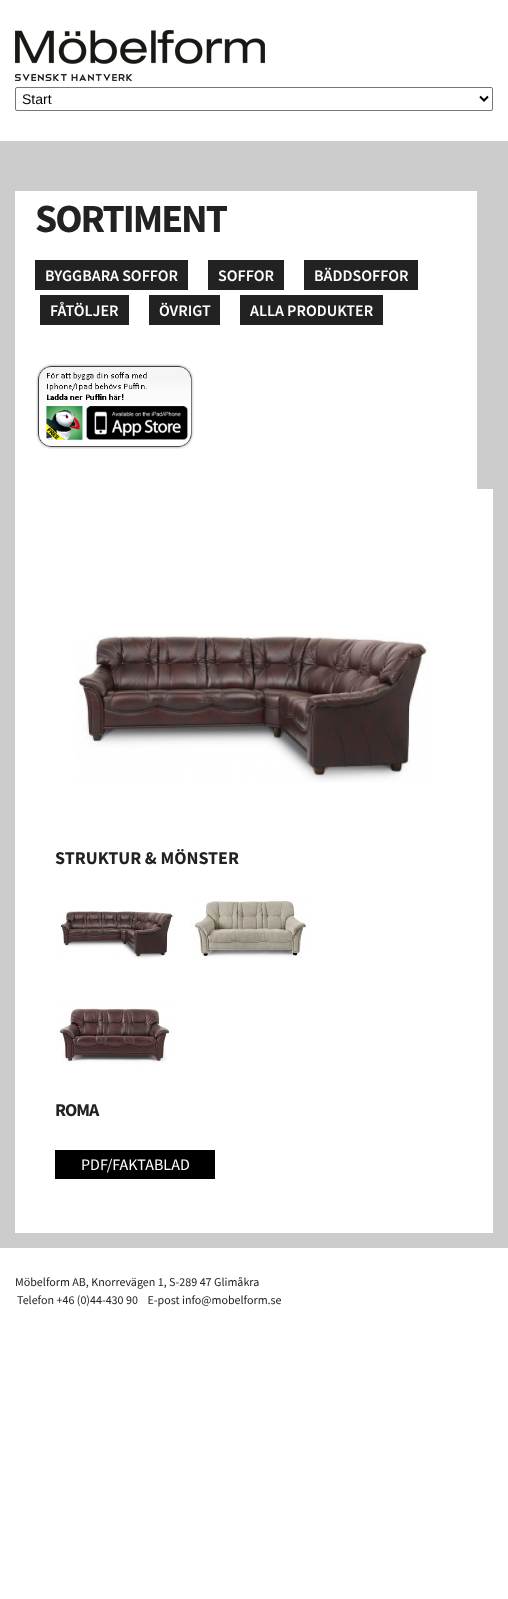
(async () => {
    const canvas = document.querySelector("canvas");
    canvas.width = 508;
    canvas.height = 1599;
    const context = canvas.getContext("2d");
    context.miterLimit = 4;
    context.fontKerning = "normal";
    function write(s, x, y, font, color) {
        context.font = font;
        context.fillStyle = color;
        context.fillText(s, x, y);
    }
    function block(x, y, w, h, color) {
        context.fillStyle = color;
        context.fillRect(x, y, w, h);
    }
    async function photo(src, x, y, w, h) {
        const img = new Image();
        img.src = src;
        await img.decode();
        context.drawImage(img, x, y, w, h);
    }

    block(0, 0, 508, 1599, "rgb(255, 255, 255)");
    await photo("media/1.png", 15, 30, 250, 51);
    context.beginPath();
    context.roundRect(15.5, 87.5, 477, 23, 1.5);
    context.strokeStyle = "rgb(118, 118, 118)";
    context.stroke();
    context.beginPath();
    context.moveTo(480, 96.5);
    context.lineTo(484, 100.5);
    context.lineTo(488, 96.5);
    context.strokeStyle = "rgb(0, 0, 0)";
    context.lineWidth = 2;
    context.stroke();
    write("Start", 22, 104, "14px Liberation Sans", "rgb(0, 0, 0)");
    block(0, 141, 508, 1107, "rgb(204, 204, 204)");
    block(15, 191, 462, 298, "rgb(255, 255, 255)");
    context.letterSpacing = "-2px";
    write("SORTIMENT", 35, 232, "bold 40px Source Sans Pro", "rgb(34, 34, 34)");
    block(35, 260, 153, 30, "rgb(34, 34, 34)");
    context.letterSpacing = "0px";
    write("BYGGBARA SOFFOR", 45, 281, "600 16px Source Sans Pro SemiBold", "rgb(255, 255, 255)");
    block(208, 260, 76, 30, "rgb(34, 34, 34)");
    write("SOFFOR", 218, 281, "600 16px Source Sans Pro SemiBold", "rgb(255, 255, 255)");
    block(304, 260, 114, 30, "rgb(34, 34, 34)");
    write("BÄDDSOFFOR", 314, 281, "600 16px Source Sans Pro SemiBold", "rgb(255, 255, 255)");
    block(40, 295, 89, 30, "rgb(34, 34, 34)");
    write("FÅTÖLJER", 50, 316, "600 16px Source Sans Pro SemiBold", "rgb(255, 255, 255)");
    block(149, 295, 71, 30, "rgb(34, 34, 34)");
    write("ÖVRIGT", 159, 316, "600 16px Source Sans Pro SemiBold", "rgb(255, 255, 255)");
    block(240, 295, 143, 30, "rgb(34, 34, 34)");
    write("ALLA PRODUKTER", 250, 316, "600 16px Source Sans Pro SemiBold", "rgb(255, 255, 255)");
    await photo("media/2.png", 36, 364, 158, 85);
    block(15, 489, 478, 744, "rgb(255, 255, 255)");
    await photo("media/3.png", 75, 634, 355, 149);
    write("STRUKTUR & MÖNSTER", 55, 864, "bold 18px Source Sans Pro", "rgb(34, 34, 34)");
    await photo("media/4.png", 56, 910, 119, 50);
    await photo("media/5.png", 190, 896, 120, 64);
    await photo("media/6.png", 55, 1001, 120, 64);
    context.letterSpacing = "-1px";
    write("ROMA", 55, 1116, "bold 18px Source Sans Pro", "rgb(34, 34, 34)");
    block(55, 1150, 160, 29, "rgb(0, 0, 0)");
    context.letterSpacing = "0px";
    write("PDF/FAKTABLAD", 81, 1170, "16px Source Sans Pro", "rgb(255, 255, 255)");
    write("Möbelform AB, Knorrevägen 1, S-289 47 Glimåkra", 15, 1286, "12px Source Sans Pro", "rgb(34, 34, 34)");
    write("Telefon +46 (0)44-430 90    E-post info@mobelform.se", 17, 1304, "12px Source Sans Pro", "rgb(34, 34, 34)");
})();
